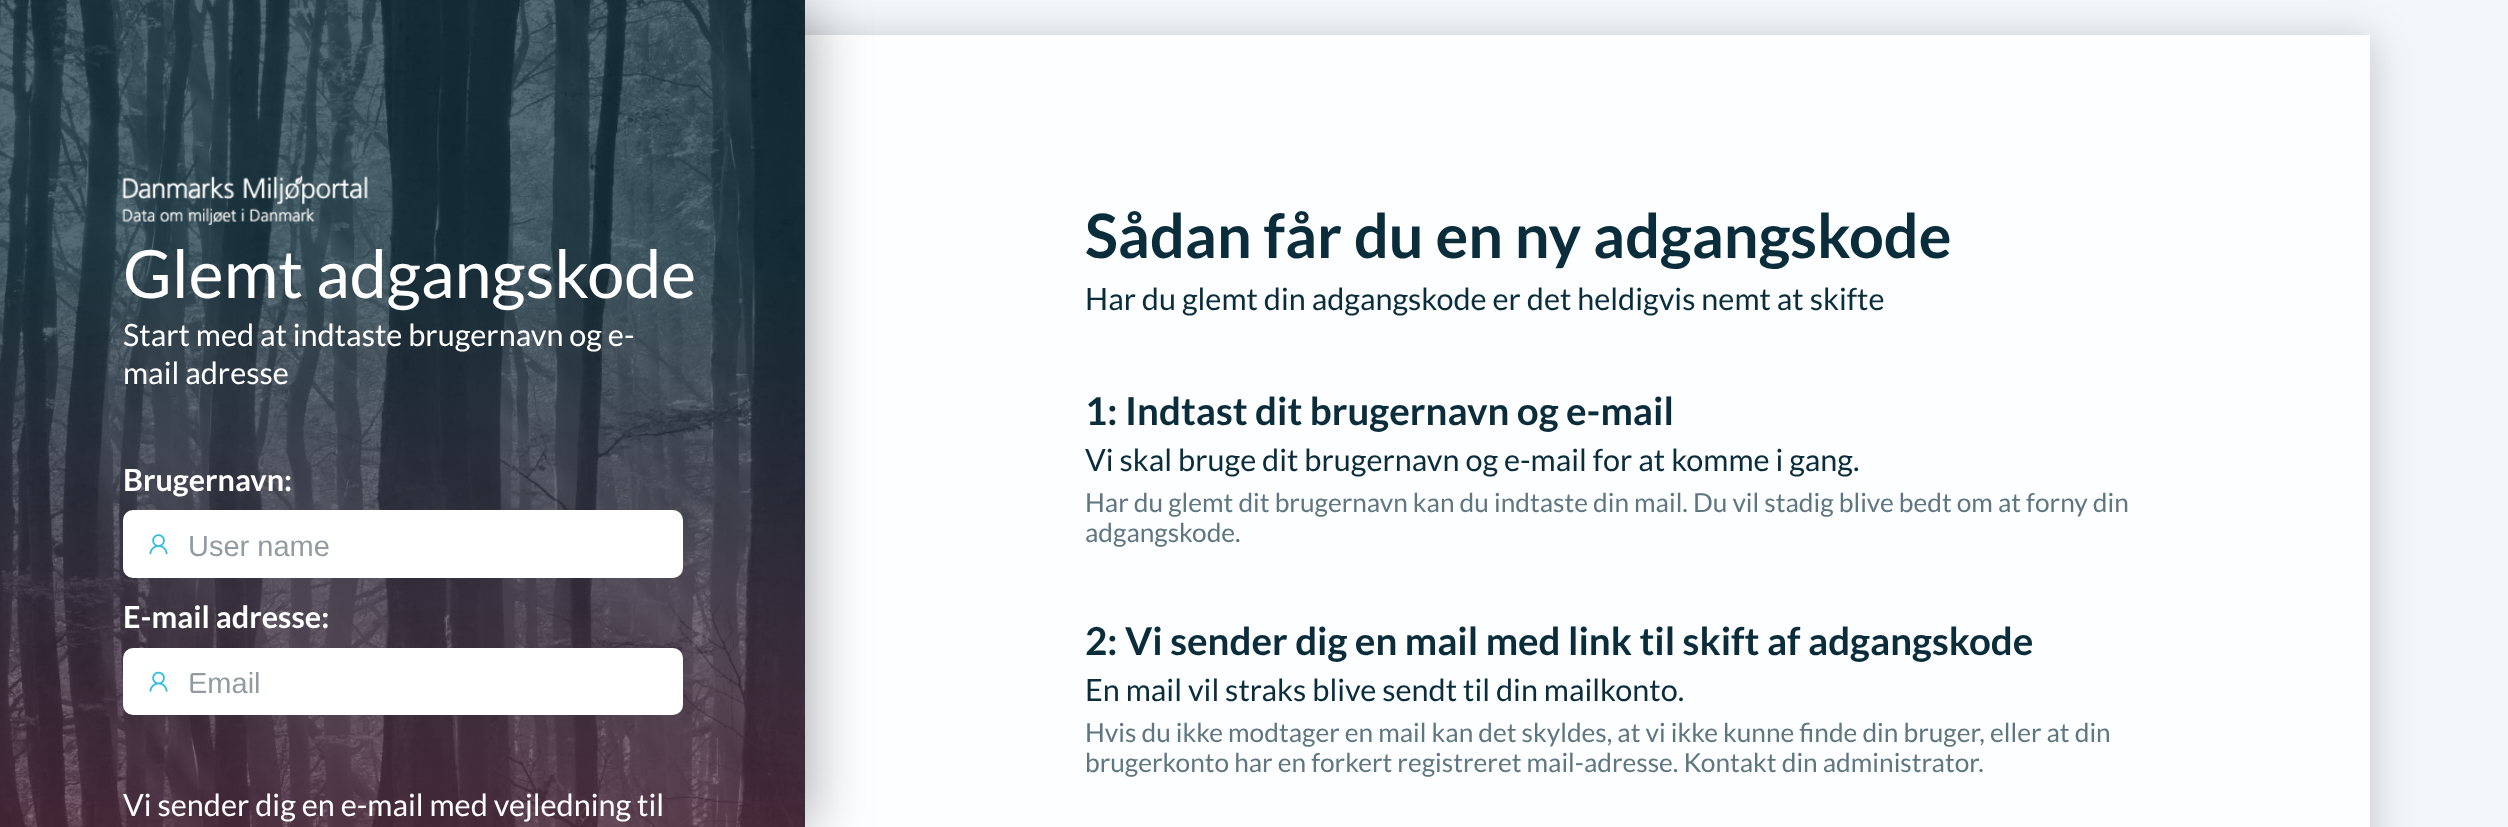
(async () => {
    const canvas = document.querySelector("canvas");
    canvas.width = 2508;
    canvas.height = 827;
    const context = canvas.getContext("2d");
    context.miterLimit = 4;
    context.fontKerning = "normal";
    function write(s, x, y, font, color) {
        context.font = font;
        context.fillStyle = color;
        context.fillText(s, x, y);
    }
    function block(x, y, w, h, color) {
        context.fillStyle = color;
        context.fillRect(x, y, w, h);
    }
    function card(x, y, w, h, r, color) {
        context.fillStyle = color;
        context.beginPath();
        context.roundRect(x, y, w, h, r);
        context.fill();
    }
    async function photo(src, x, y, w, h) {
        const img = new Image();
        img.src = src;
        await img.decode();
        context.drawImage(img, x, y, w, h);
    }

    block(0, 0, 2508, 827, "rgb(244, 247, 250)");
    context.fillStyle = "rgba(0, 0, 0, 0.19)";
    context.filter = "blur(20px)";
    context.beginPath();
    context.rect(143, 38, 2230, 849);
    context.fill();
    context.filter = "none";
    block(805, 35, 1565, 792, "rgb(252, 254, 255)");
    context.fillStyle = "rgba(0, 0, 0, 0.35)";
    context.filter = "blur(30px)";
    context.beginPath();
    context.rect(3, 3, 805, 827);
    context.fill();
    context.filter = "none";
    await photo("media/1.png", 0, 0, 805, 827);
    await photo("media/2.png", 122, 175, 246, 50);
    write("Glemt adgangskode", 123, 298, "66.5px Lato", "rgb(255, 255, 255)");
    write("Start med at indtaste brugernavn og e-", 123, 346, "30.6px Lato", "rgb(255, 255, 255)");
    write("mail adresse", 123, 384, "30.6px Lato", "rgb(255, 255, 255)");
    write("Brugernavn:", 123, 491, "bold 30.6px Lato", "rgb(255, 255, 255)");
    card(123, 510, 560, 68, 10, "rgb(255, 255, 255)");
    await photo("media/3.png", 149, 534, 19, 21);
    write("User name", 188, 556, "29px Liberation Sans", "rgb(146, 156, 160)");
    write("E-mail adresse:", 123, 628, "bold 30.6px Lato", "rgb(255, 255, 255)");
    card(123, 648, 560, 67, 10, "rgb(255, 255, 255)");
    await photo("media/4.png", 149, 671, 19, 21);
    context.save();
    context.beginPath();
    context.roundRect(188, 668, 385, 30, 15);
    context.clip();
    write("Email", 188, 693, "29px Liberation Sans", "rgb(146, 156, 160)");
    context.restore();
    write("Vi sender dig en e-mail med vejledning til", 123, 816, "30.6px Lato", "rgb(255, 255, 255)");
    write("Sådan får du en ny adgangskode", 1085, 258, "bold 61.25px Lato", "rgb(11, 45, 59)");
    write("Har du glemt din adgangskode er det heldigvis nemt at skifte", 1085, 310, "30.6px Lato", "rgb(11, 45, 59)");
    write("1: Indtast dit brugernavn og e-mail", 1085, 425, "bold 38.5px Lato", "rgb(11, 45, 59)");
    write("Vi skal bruge dit brugernavn og e-mail for at komme i gang.", 1085, 471, "30.6px Lato", "rgb(11, 45, 59)");
    write("Har du glemt dit brugernavn kan du indtaste din mail. Du vil stadig blive bedt om at forny din", 1085, 512, "26.25px Lato", "rgb(95, 118, 128)");
    write("adgangskode.", 1085, 542, "26.25px Lato", "rgb(95, 118, 128)");
    write("2: Vi sender dig en mail med link til skift af adgangskode", 1085, 655, "bold 38.5px Lato", "rgb(11, 45, 59)");
    write("En mail vil straks blive sendt til din mailkonto.", 1085, 701, "30.6px Lato", "rgb(11, 45, 59)");
    write("Hvis du ikke modtager en mail kan det skyldes, at vi ikke kunne finde din bruger, eller at din", 1085, 742, "26.25px Lato", "rgb(95, 118, 128)");
    write("brugerkonto har en forkert registreret mail-adresse. Kontakt din administrator.", 1085, 772, "26.25px Lato", "rgb(95, 118, 128)");
})();
